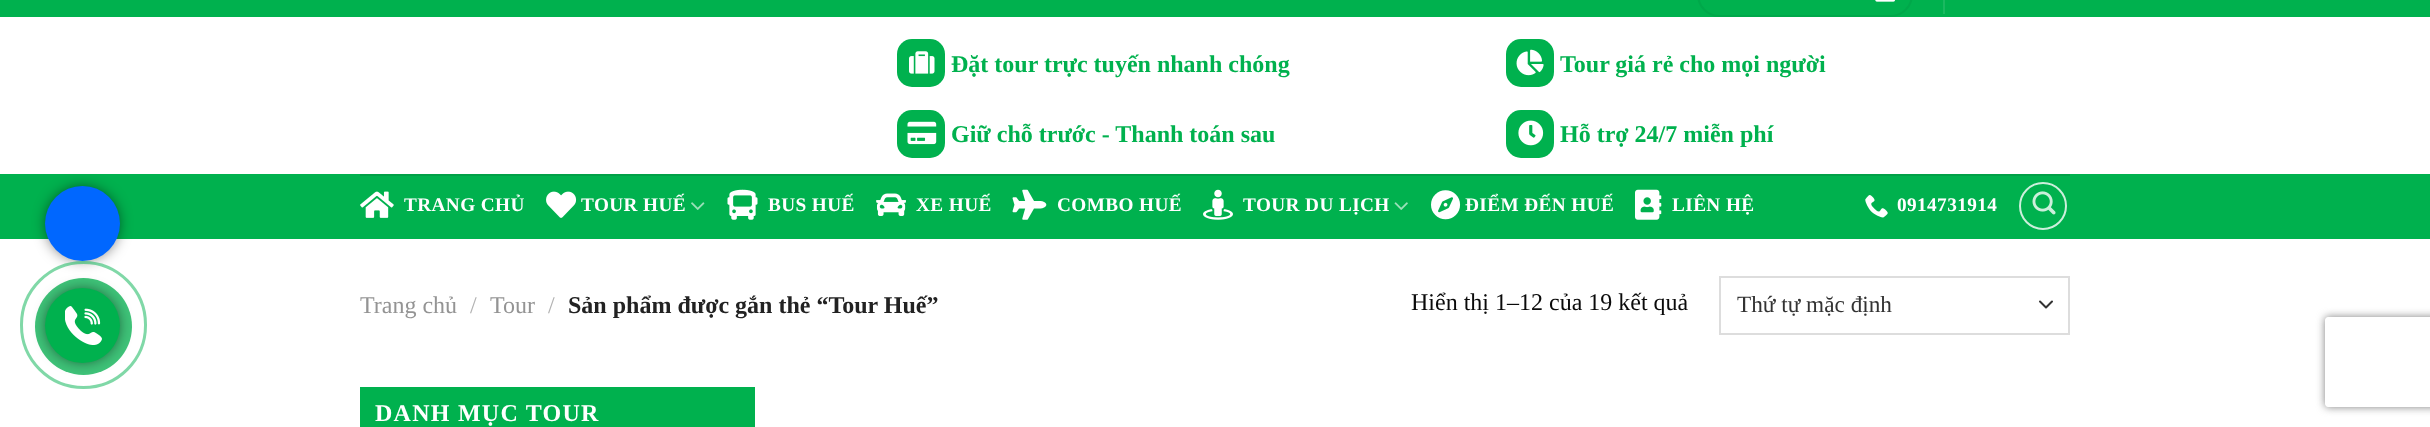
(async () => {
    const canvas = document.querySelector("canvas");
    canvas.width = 2430;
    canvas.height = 427;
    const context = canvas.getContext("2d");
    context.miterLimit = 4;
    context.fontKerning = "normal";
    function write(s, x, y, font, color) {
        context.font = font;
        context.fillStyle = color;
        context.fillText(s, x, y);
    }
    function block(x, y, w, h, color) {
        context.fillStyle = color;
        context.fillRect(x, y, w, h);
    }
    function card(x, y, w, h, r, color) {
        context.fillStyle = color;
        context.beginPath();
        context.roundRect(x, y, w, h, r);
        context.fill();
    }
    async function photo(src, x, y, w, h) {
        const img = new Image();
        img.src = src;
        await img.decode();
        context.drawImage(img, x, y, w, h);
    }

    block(0, 0, 2430, 427, "rgb(255, 255, 255)");
    context.fillStyle = "rgb(63, 196, 121)";
    context.beginPath();
    context.arc(83.5, 326.5, 48.5, 0, Math.PI * 2);
    context.fill();
    block(0, 174, 2430, 65, "rgb(0, 177, 78)");
    context.fillStyle = "rgba(0, 0, 0, 0.7)";
    context.filter = "blur(7.5px)";
    context.beginPath();
    context.roundRect(48, 189, 69, 69, 34.5);
    context.fill();
    context.filter = "none";
    context.fillStyle = "rgb(0, 103, 255)";
    context.beginPath();
    context.arc(82.5, 223.5, 37.5, 0, Math.PI * 2);
    context.fill();
    context.fillStyle = "rgba(0, 0, 0, 0.7)";
    context.filter = "blur(7.5px)";
    context.beginPath();
    context.roundRect(48, 291, 69, 69, 34.5);
    context.fill();
    context.filter = "none";
    context.fillStyle = "rgb(0, 177, 78)";
    context.beginPath();
    context.arc(82.5, 325.5, 37.5, 0, Math.PI * 2);
    context.fill();
    await photo("media/1.png", 65, 306, 37, 39);
    context.beginPath();
    context.roundRect(21.5, 262.5, 124, 125, 62);
    context.strokeStyle = "rgba(2, 177, 79, 0.5)";
    context.lineWidth = 3;
    context.stroke();
    block(0, 0, 2430, 17, "rgb(0, 177, 78)");
    context.beginPath();
    context.roundRect(1698, -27, 214, 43, 24.5);
    context.strokeStyle = "rgb(0, 168, 74)";
    context.lineWidth = 2;
    context.stroke();
    await photo("media/2.png", 1875, 0, 20, 2);
    block(1943, 0, 2, 14, "rgb(26, 185, 96)");
    card(897, 39, 48, 48, 15, "rgb(0, 177, 78)");
    await photo("media/3.png", 909, 51, 26, 23);
    write("Đặt tour trực tuyến nhanh chóng", 951, 72, "bold 24px Liberation Serif", "rgb(0, 177, 78)");
    card(897, 110, 48, 48, 15, "rgb(0, 177, 78)");
    await photo("media/4.png", 907, 121, 30, 24);
    write("Giữ chỗ trước - Thanh toán sau", 951, 142, "bold 24px Liberation Serif", "rgb(0, 177, 78)");
    card(1506, 39, 48, 48, 15, "rgb(0, 177, 78)");
    await photo("media/5.png", 1516, 49, 28, 27);
    write("Tour giá rẻ cho mọi người", 1560, 72, "bold 24px Liberation Serif", "rgb(0, 177, 78)");
    card(1506, 110, 48, 48, 15, "rgb(0, 177, 78)");
    await photo("media/6.png", 1518, 120, 26, 26);
    write("Hỗ trợ 24/7 miễn phí", 1560, 142, "bold 24px Liberation Serif", "rgb(0, 177, 78)");
    block(360, 174, 1710, 2, "rgb(1, 160, 71)");
    await photo("media/7.png", 360, 191, 34, 27);
    context.letterSpacing = "0.4px";
    write("TRANG CHỦ", 404, 211, "bold 19.25px Liberation Serif", "rgb(255, 255, 255)");
    await photo("media/8.png", 546, 191, 31, 27);
    write("TOUR HUẾ", 581, 211, "bold 19.25px Liberation Serif", "rgb(255, 255, 255)");
    await photo("media/9.png", 691, 202, 14, 8);
    await photo("media/10.png", 727, 189, 31, 31);
    write("BUS HUẾ", 768, 211, "bold 19.25px Liberation Serif", "rgb(255, 255, 255)");
    await photo("media/11.png", 876, 193, 30, 23);
    write("XE HUẾ", 916, 211, "bold 19.25px Liberation Serif", "rgb(255, 255, 255)");
    await photo("media/12.png", 1012, 189, 35, 31);
    write("COMBO HUẾ", 1057, 211, "bold 19.25px Liberation Serif", "rgb(255, 255, 255)");
    await photo("media/13.png", 1203, 189, 30, 31);
    write("TOUR DU LỊCH", 1243, 211, "bold 19.25px Liberation Serif", "rgb(255, 255, 255)");
    await photo("media/14.png", 1394, 202, 14, 8);
    await photo("media/15.png", 1431, 190, 30, 30);
    write("ĐIỂM ĐẾN HUẾ", 1465, 211, "bold 19.25px Liberation Serif", "rgb(255, 255, 255)");
    await photo("media/16.png", 1635, 189, 27, 31);
    write("LIÊN HỆ", 1672, 211, "bold 19.25px Liberation Serif", "rgb(255, 255, 255)");
    await photo("media/17.png", 1865, 195, 23, 23);
    write("0914731914", 1897, 211, "bold 19.25px Liberation Serif", "rgb(255, 255, 255)");
    context.beginPath();
    context.arc(2043, 206, 23, 0, Math.PI * 2);
    context.strokeStyle = "rgb(204, 239, 220)";
    context.stroke();
    await photo("media/18.png", 2032, 191, 24, 24);
    context.letterSpacing = "0px";
    write("Trang chủ", 360, 313, "24px Liberation Serif", "rgb(148, 148, 148)");
    write("/", 470, 313, "24px Liberation Serif", "rgb(178, 178, 178)");
    write("Tour", 490, 313, "24px Liberation Serif", "rgb(148, 148, 148)");
    write("/", 548, 313, "24px Liberation Serif", "rgb(178, 178, 178)");
    write("Sản phẩm được gắn thẻ “Tour Huế”", 568, 313, "bold 24px Liberation Serif", "rgb(34, 34, 34)");
    write("Hiển thị 1–12 của 19 kết quả", 1411, 310, "24px Liberation Serif", "rgb(10, 10, 10)");
    context.beginPath();
    context.moveTo(2040, 301.5);
    context.lineTo(2046, 307.5);
    context.lineTo(2052, 301.5);
    context.strokeStyle = "rgb(51, 51, 51)";
    context.lineCap = "round";
    context.lineJoin = "round";
    context.stroke();
    context.strokeStyle = "rgb(221, 221, 221)";
    context.lineJoin = "miter";
    context.strokeRect(1720, 277, 349, 57);
    write("Thứ tự mặc định", 1737, 312, "23.25px Liberation Serif", "rgb(51, 51, 51)");
    block(360, 387, 395, 40, "rgb(0, 177, 78)");
    context.letterSpacing = "1.25px";
    write("DANH MỤC TOUR", 375, 421, "bold 24px Liberation Serif", "rgb(255, 255, 255)");
    context.save();
    context.beginPath();
    context.moveTo(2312, 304);
    context.lineTo(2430, 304);
    context.lineTo(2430, 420);
    context.lineTo(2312, 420);
    context.closePath();
    context.moveTo(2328, 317);
    context.lineTo(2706, 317);
    context.bezierCurveTo(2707.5, 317, 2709, 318.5, 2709, 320);
    context.lineTo(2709, 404);
    context.bezierCurveTo(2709, 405.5, 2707.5, 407, 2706, 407);
    context.lineTo(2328, 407);
    context.bezierCurveTo(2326.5, 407, 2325, 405.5, 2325, 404);
    context.lineTo(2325, 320);
    context.bezierCurveTo(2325, 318.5, 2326.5, 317, 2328, 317);
    context.closePath();
    context.clip("evenodd");
    context.fillStyle = "rgb(128, 128, 128)";
    context.filter = "blur(4px)";
    context.beginPath();
    context.roundRect(2325, 317, 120, 90, 3);
    context.fill();
    context.filter = "none";
    context.restore();
})();
